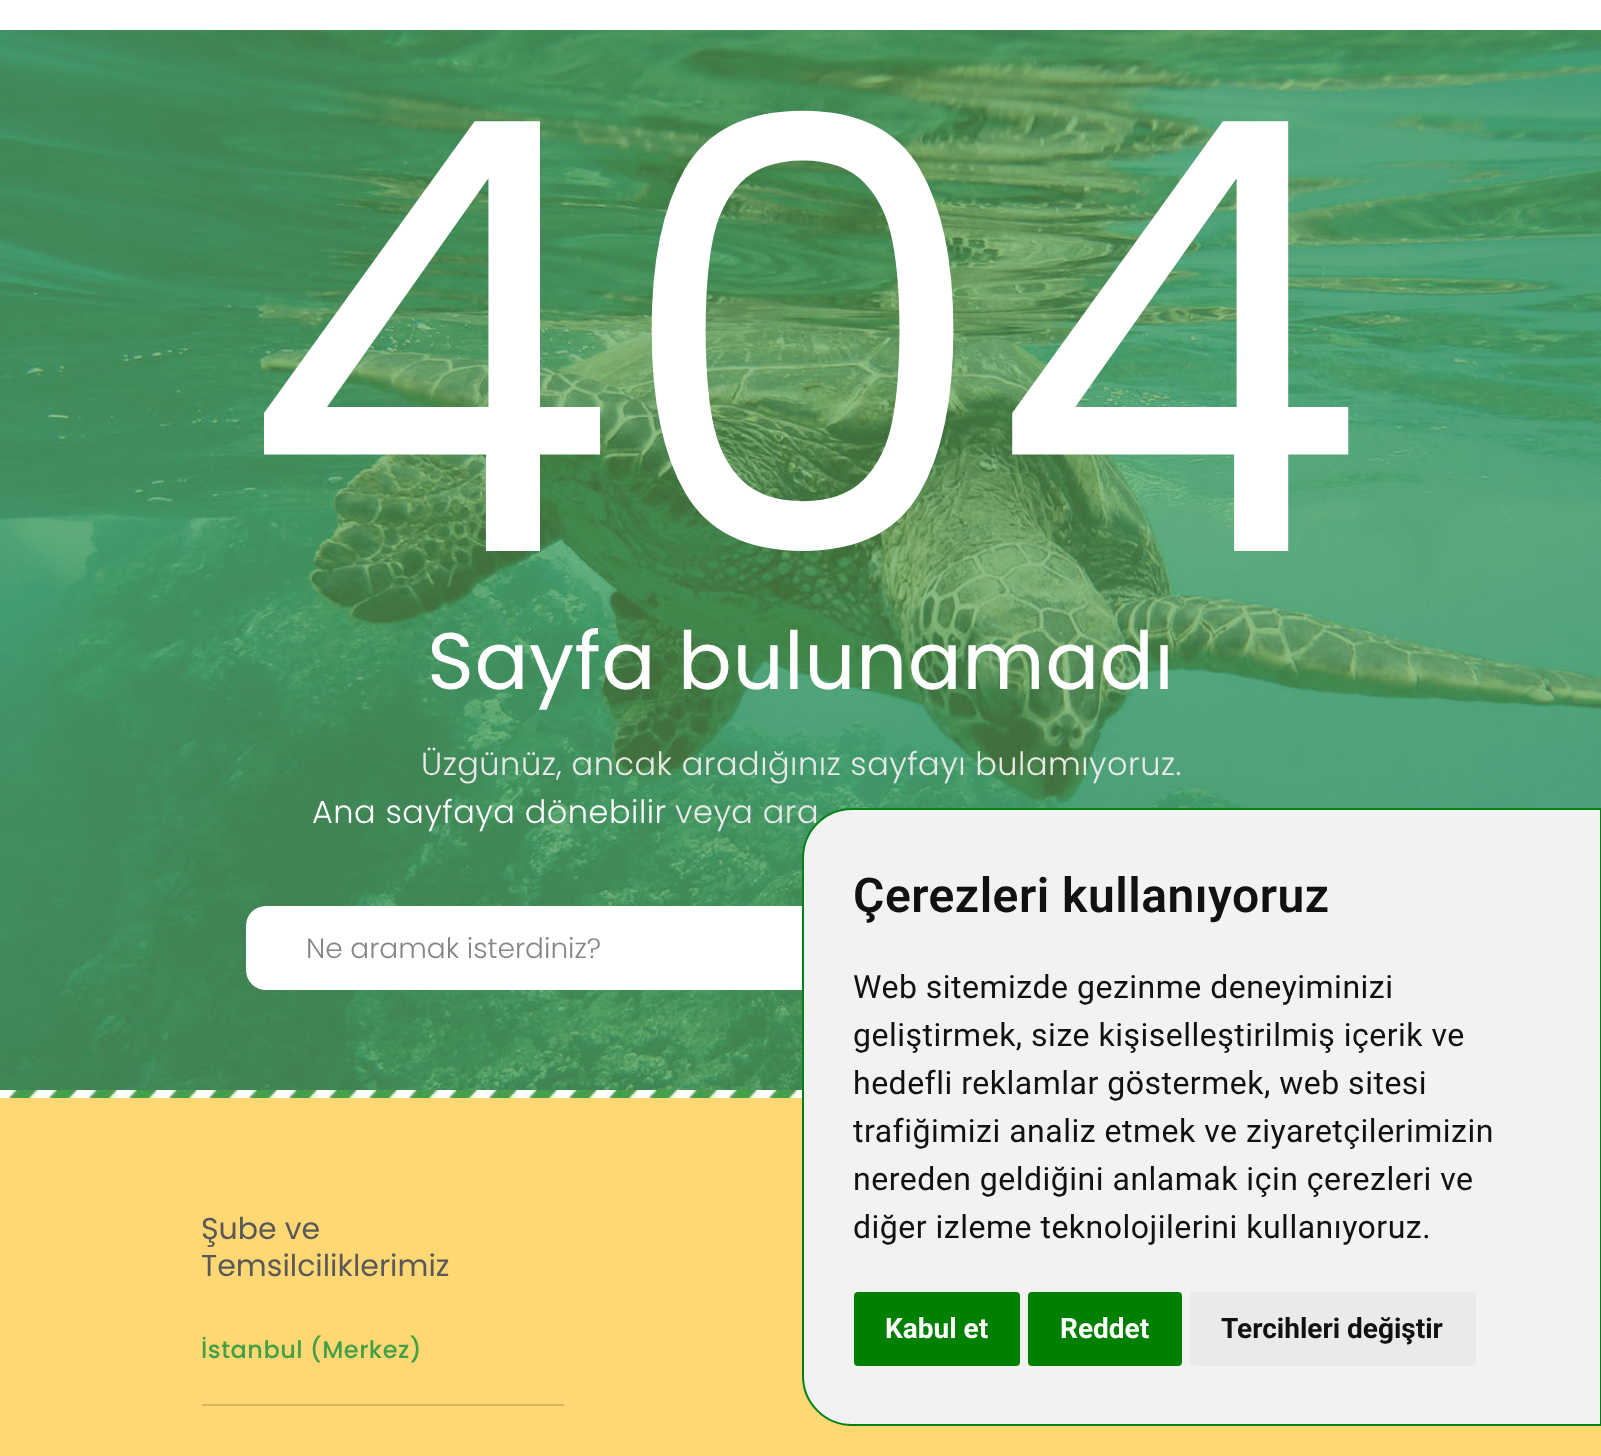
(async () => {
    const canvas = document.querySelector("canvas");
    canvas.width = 1601;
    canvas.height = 1456;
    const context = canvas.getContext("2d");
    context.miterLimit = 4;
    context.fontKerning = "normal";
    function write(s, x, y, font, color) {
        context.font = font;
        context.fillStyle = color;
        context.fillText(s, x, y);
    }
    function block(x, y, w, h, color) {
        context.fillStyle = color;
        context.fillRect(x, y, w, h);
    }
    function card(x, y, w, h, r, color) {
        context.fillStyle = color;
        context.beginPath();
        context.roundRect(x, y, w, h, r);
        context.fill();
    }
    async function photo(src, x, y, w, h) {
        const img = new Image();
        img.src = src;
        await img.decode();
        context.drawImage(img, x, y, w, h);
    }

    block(0, 0, 1601, 1456, "rgb(255, 255, 255)");
    await photo("media/1.png", 0, 30, 1601, 1060);
    context.letterSpacing = "-3px";
    write("404", 240, 551, "600px Poppins", "rgb(255, 255, 255)");
    context.letterSpacing = "0.5px";
    write("Sayfa bulunamadı", 427, 689, "80px Poppins", "rgb(255, 255, 255)");
    write("Üzgünüz, ancak aradığınız sayfayı bulamıyoruz.", 421, 775, "300 32px Poppins", "rgb(233, 233, 233)");
    write("Ana sayfaya dönebilir", 312, 823, "300 32px Poppins", "rgb(255, 255, 255)");
    write("veya ara", 675, 823, "300 32px Poppins", "rgb(233, 233, 233)");
    card(246, 906, 1110, 84, 20, "rgb(255, 255, 255)");
    context.letterSpacing = "0px";
    write("Ne aramak isterdiniz?", 306, 958, "300 28px Poppins", "rgb(133, 133, 133)");
    await photo("media/2.png", 0, 1090, 802, 8);
    block(0, 1098, 1601, 358, "rgb(255, 216, 115)");
    write("Şube ve", 201, 1239, "30px Poppins", "rgb(89, 89, 89)");
    write("Temsilciliklerimiz", 201, 1276, "30px Poppins", "rgb(89, 89, 89)");
    context.letterSpacing = "0.5px";
    write("İstanbul (Merkez)", 201, 1358, "500 24px Poppins", "rgb(68, 160, 70)");
    block(202, 1404, 362, 2, "rgb(215, 181, 94)");
    context.fillStyle = "rgb(242, 242, 242)";
    context.beginPath();
    context.moveTo(852, 809);
    context.lineTo(1601, 809);
    context.lineTo(1601, 1425);
    context.lineTo(852, 1425);
    context.bezierCurveTo(825, 1425, 803, 1403, 803, 1376);
    context.lineTo(803, 858);
    context.bezierCurveTo(803, 831, 825, 809, 852, 809);
    context.closePath();
    context.fill();
    context.strokeStyle = "rgb(0, 129, 21)";
    context.lineWidth = 2;
    context.stroke();
    write("Çerezleri kullanıyoruz", 853, 912, "600 48px Roboto", "rgb(17, 17, 17)");
    write("Web sitemizde gezinme deneyiminizi", 853, 998, "32px Roboto", "rgb(17, 17, 17)");
    write("geliştirmek, size kişiselleştirilmiş içerik ve", 853, 1046, "32px Roboto", "rgb(17, 17, 17)");
    write("hedefli reklamlar göstermek, web sitesi", 853, 1094, "32px Roboto", "rgb(17, 17, 17)");
    write("trafiğimizi analiz etmek ve ziyaretçilerimizin", 853, 1142, "32px Roboto", "rgb(17, 17, 17)");
    write("nereden geldiğini anlamak için çerezleri ve", 853, 1190, "32px Roboto", "rgb(17, 17, 17)");
    write("diğer izleme teknolojilerini kullanıyoruz.", 853, 1238, "32px Roboto", "rgb(17, 17, 17)");
    card(854, 1292, 166, 74, 4, "rgb(0, 128, 0)");
    context.letterSpacing = "0px";
    write("Kabul et", 885, 1338, "bold 28px Roboto", "rgb(255, 255, 255)");
    card(1028, 1292, 154, 74, 4, "rgb(0, 128, 0)");
    write("Reddet", 1060, 1338, "bold 28px Roboto", "rgb(255, 255, 255)");
    card(1190, 1292, 286, 74, 4, "rgb(234, 234, 234)");
    write("Tercihleri değiştir", 1221, 1338, "bold 28px Roboto", "rgb(17, 17, 17)");
})();
